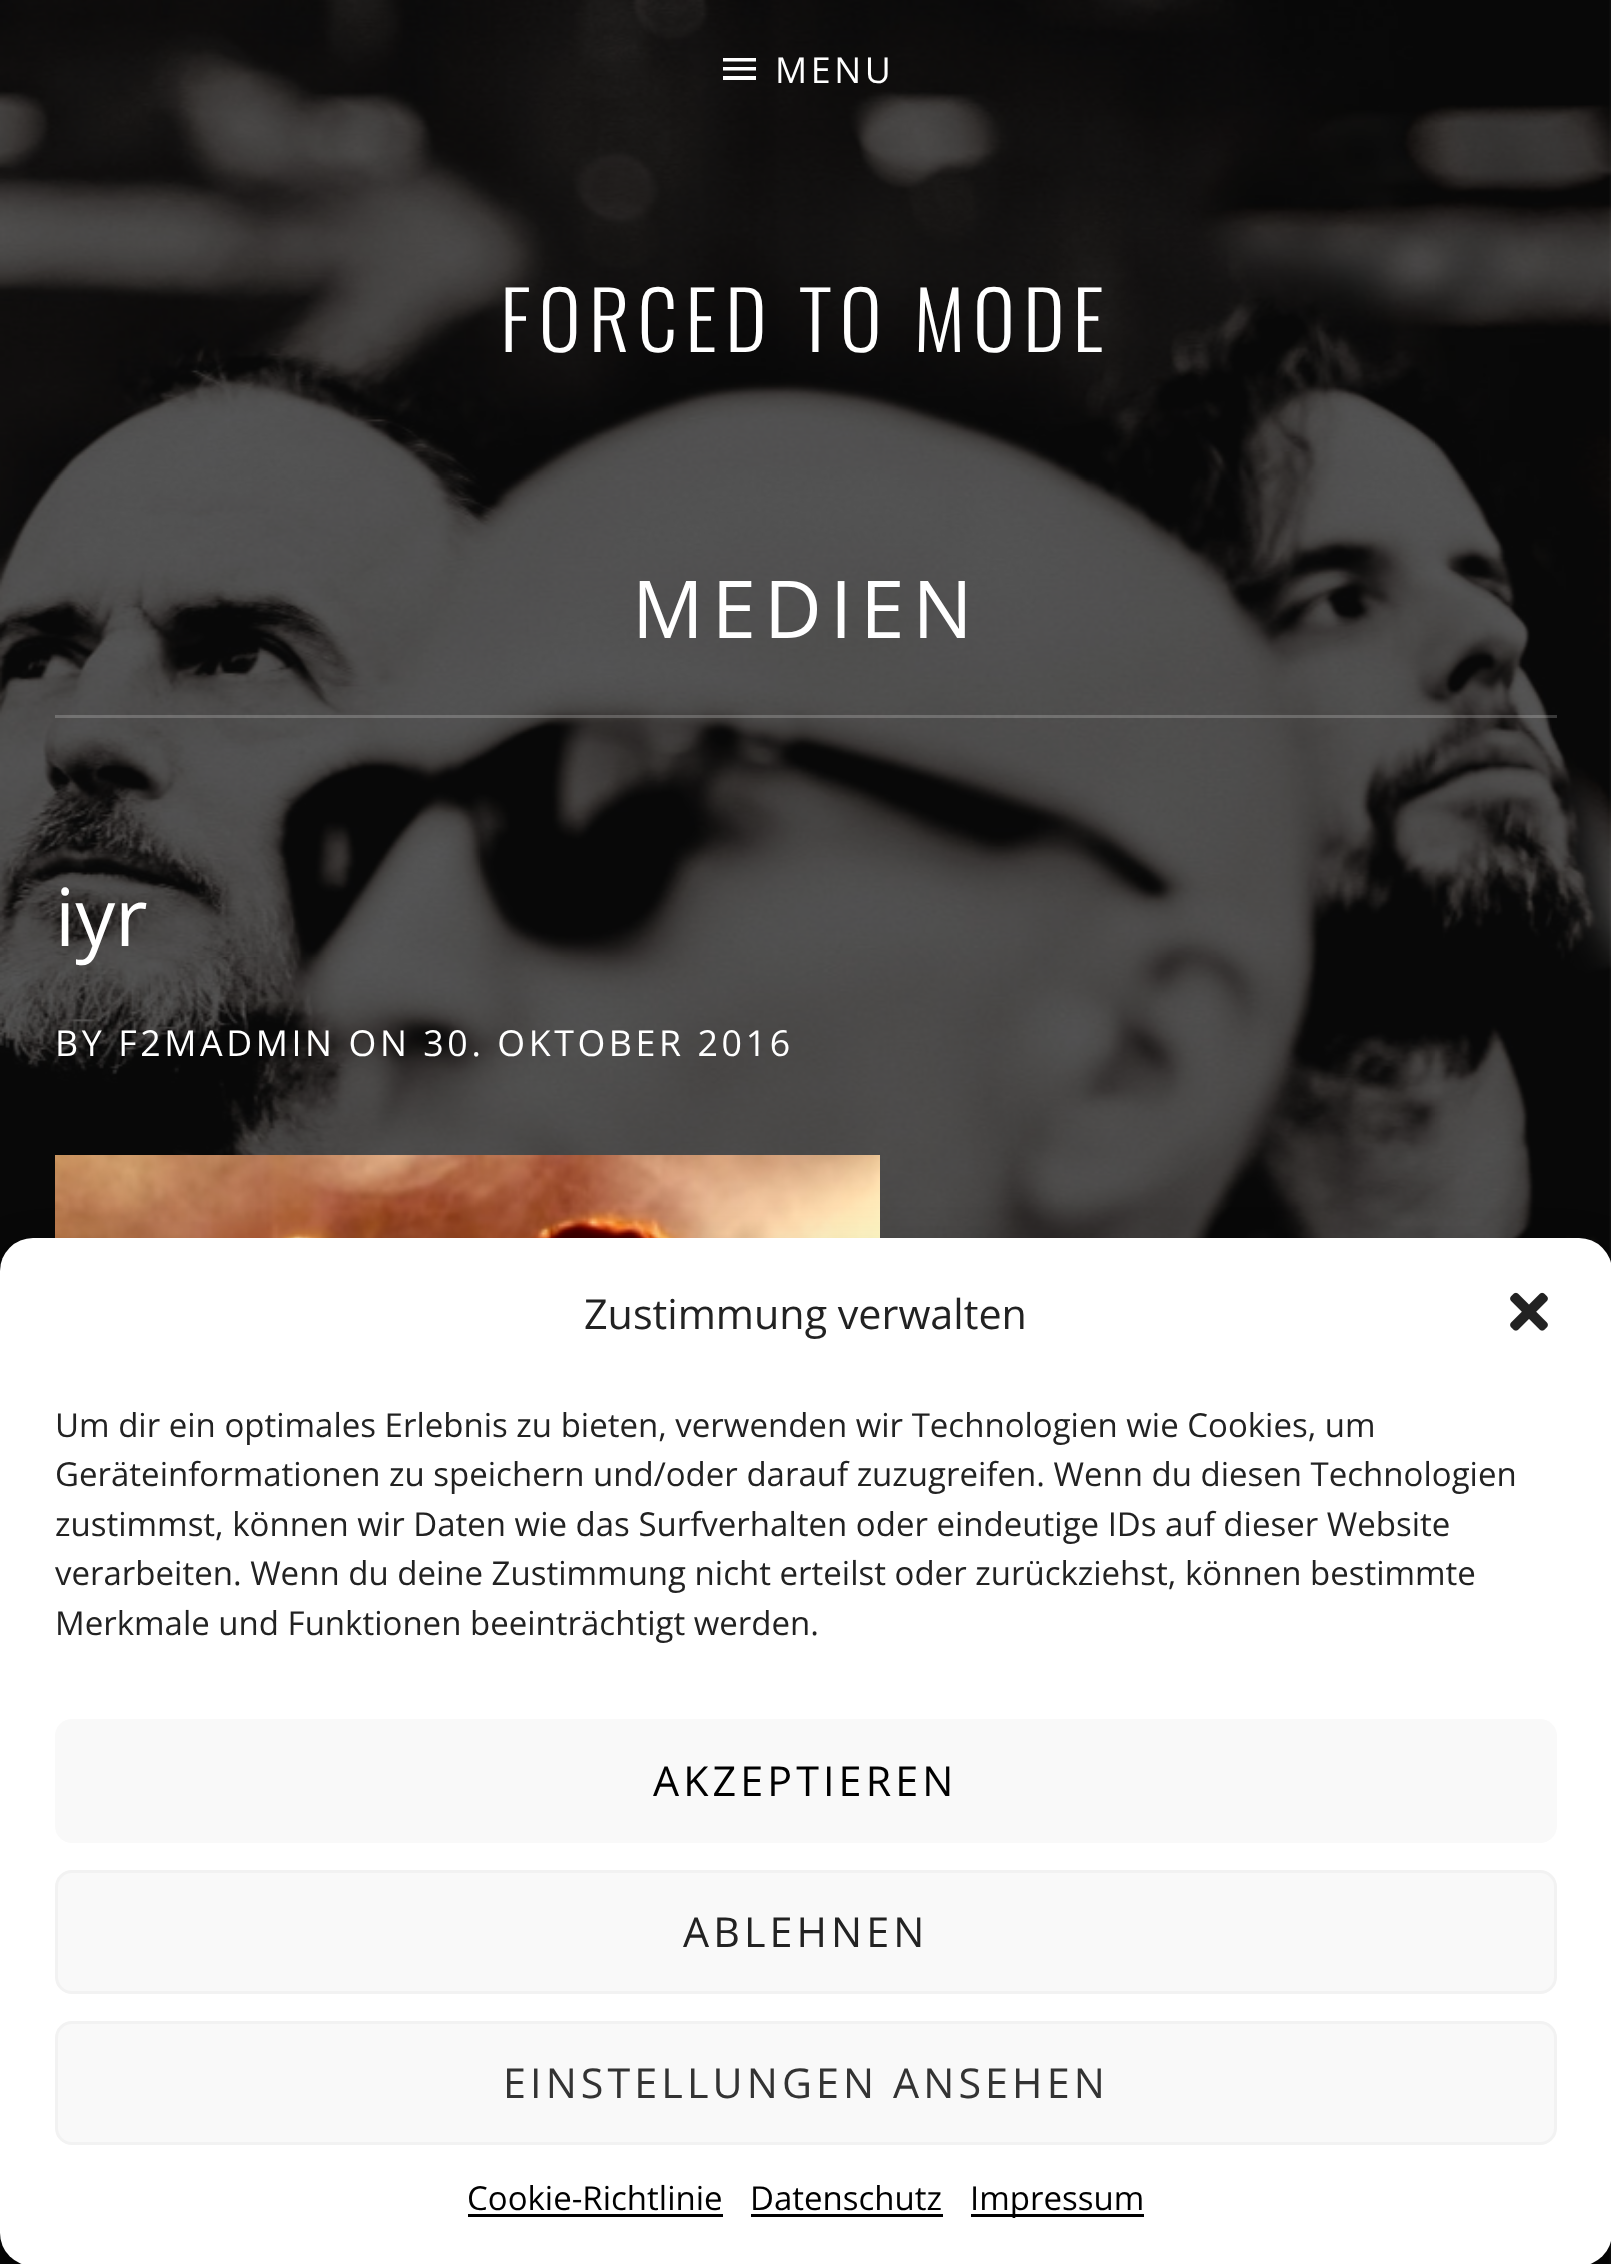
(async () => {
    const canvas = document.querySelector("canvas");
    canvas.width = 1611;
    canvas.height = 2264;
    const context = canvas.getContext("2d");
    context.miterLimit = 4;
    context.fontKerning = "normal";
    function write(s, x, y, font, color) {
        context.font = font;
        context.fillStyle = color;
        context.fillText(s, x, y);
    }
    function block(x, y, w, h, color) {
        context.fillStyle = color;
        context.fillRect(x, y, w, h);
    }
    function card(x, y, w, h, r, color) {
        context.fillStyle = color;
        context.beginPath();
        context.roundRect(x, y, w, h, r);
        context.fill();
    }
    async function photo(src, x, y, w, h) {
        const img = new Image();
        img.src = src;
        await img.decode();
        context.drawImage(img, x, y, w, h);
    }

    block(0, 0, 1611, 2264, "rgb(255, 255, 255)");
    await photo("media/1.png", 0, 0, 1611, 2264);
    context.beginPath();
    context.moveTo(723, 80);
    context.lineTo(756, 80);
    context.lineTo(756, 76);
    context.lineTo(723, 76);
    context.closePath();
    context.moveTo(723, 70.5);
    context.lineTo(756, 70.5);
    context.lineTo(756, 67);
    context.lineTo(723, 67);
    context.closePath();
    context.moveTo(723, 58);
    context.lineTo(723, 61.5);
    context.lineTo(756, 61.5);
    context.lineTo(756, 58);
    context.closePath();
    context.fill();
    context.letterSpacing = "3.6px";
    write("MENU", 775, 83, "35.75px Open Sans", "rgb(255, 255, 255)");
    context.letterSpacing = "8px";
    write("FORCED TO MODE", 500, 352, "300 79.75px Oswald", "rgb(255, 255, 255)");
    block(55, 715, 1502, 3, "rgba(255, 255, 255, 0.2)");
    write("MEDIEN", 632, 638, "79.75px Open Sans", "rgb(255, 255, 255)");
    context.letterSpacing = "0px";
    write("iyr", 55, 946, "79.75px Open Sans", "rgb(255, 255, 255)");
    context.letterSpacing = "3.6px";
    write("BY F2MADMIN ON 30. OKTOBER 2016", 55, 1056, "35.75px Open Sans", "rgb(255, 255, 255)");
    await photo("media/2.png", 55, 1155, 825, 83);
    context.fillStyle = "rgba(0, 0, 0, 0.23)";
    context.filter = "blur(8px)";
    context.beginPath();
    context.roundRect(0, 1254, 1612, 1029, 33);
    context.fill();
    context.filter = "none";
    context.fillStyle = "rgba(0, 0, 0, 0.19)";
    context.filter = "blur(27.5px)";
    context.beginPath();
    context.roundRect(0, 1265, 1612, 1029, 33);
    context.fill();
    context.filter = "none";
    card(0, 1238, 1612, 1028, 33, "rgb(255, 255, 255)");
    context.letterSpacing = "0px";
    write("Zustimmung verwalten", 584, 1329, "41.25px Open Sans", "rgb(34, 34, 34)");
    await photo("media/3.png", 1510, 1292, 38, 39);
    write("Um dir ein optimales Erlebnis zu bieten, verwenden wir Technologien wie Cookies, um", 55, 1437, "33px Open Sans", "rgb(34, 34, 34)");
    write("Geräteinformationen zu speichern und/oder darauf zuzugreifen. Wenn du diesen Technologien", 55, 1486, "33px Open Sans", "rgb(34, 34, 34)");
    write("zustimmst, können wir Daten wie das Surfverhalten oder eindeutige IDs auf dieser Website", 55, 1536, "33px Open Sans", "rgb(34, 34, 34)");
    write("verarbeiten. Wenn du deine Zustimmung nicht erteilst oder zurückziehst, können bestimmte", 55, 1585, "33px Open Sans", "rgb(34, 34, 34)");
    write("Merkmale und Funktionen beeinträchtigt werden.", 55, 1635, "33px Open Sans", "rgb(34, 34, 34)");
    card(55, 1719, 1502, 124, 17, "rgb(249, 249, 249)");
    context.letterSpacing = "4.1px";
    write("AKZEPTIEREN", 653, 1796, "41.25px Open Sans", "rgb(0, 0, 0)");
    context.fillStyle = "rgb(249, 249, 249)";
    context.beginPath();
    context.roundRect(56.5, 1871.5, 1499, 121, 15.5);
    context.fill();
    context.strokeStyle = "rgb(242, 242, 242)";
    context.lineWidth = 3;
    context.stroke();
    write("ABLEHNEN", 683, 1947, "41.25px Open Sans", "rgb(34, 34, 34)");
    context.fillStyle = "rgb(249, 249, 249)";
    context.beginPath();
    context.roundRect(56.5, 2022.5, 1499, 121, 15.5);
    context.fill();
    context.stroke();
    write("EINSTELLUNGEN ANSEHEN", 503, 2098, "41.25px Open Sans", "rgb(51, 51, 51)");
    context.letterSpacing = "0px";
    write("Cookie-Richtlinie", 467, 2210, "33px Open Sans", "rgb(0, 0, 0)");
    block(468, 2214, 255, 3, "rgb(0, 0, 0)");
    write("Datenschutz", 750, 2210, "33px Open Sans", "rgb(0, 0, 0)");
    block(751, 2214, 192, 3, "rgb(0, 0, 0)");
    block(971, 2214, 173, 3, "rgb(0, 0, 0)");
    write("Impressum", 970, 2210, "33px Open Sans", "rgb(0, 0, 0)");
})();
